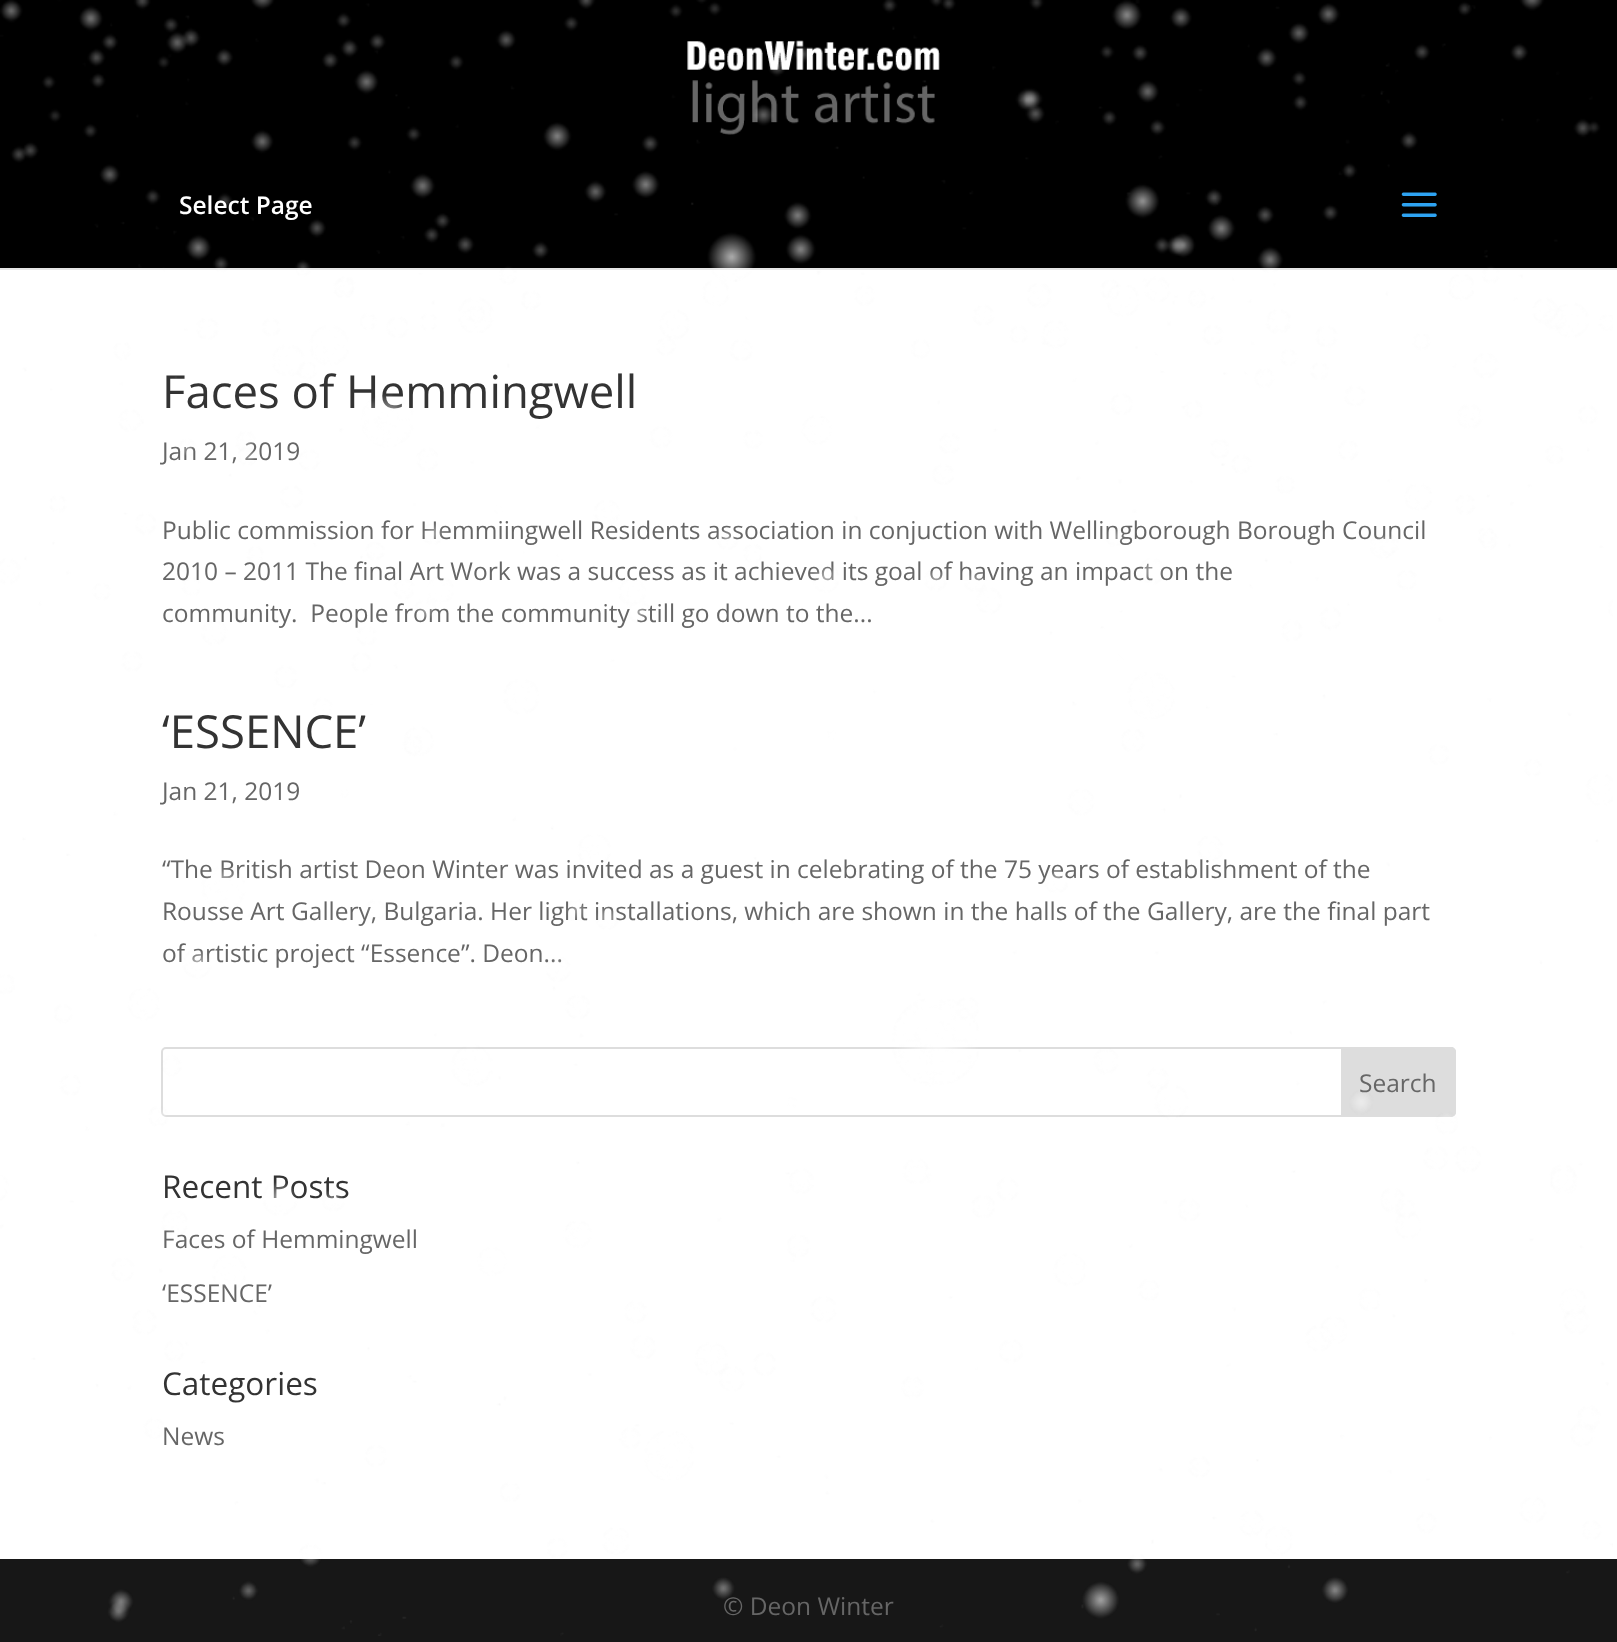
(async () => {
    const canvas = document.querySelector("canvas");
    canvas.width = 1617;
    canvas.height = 1642;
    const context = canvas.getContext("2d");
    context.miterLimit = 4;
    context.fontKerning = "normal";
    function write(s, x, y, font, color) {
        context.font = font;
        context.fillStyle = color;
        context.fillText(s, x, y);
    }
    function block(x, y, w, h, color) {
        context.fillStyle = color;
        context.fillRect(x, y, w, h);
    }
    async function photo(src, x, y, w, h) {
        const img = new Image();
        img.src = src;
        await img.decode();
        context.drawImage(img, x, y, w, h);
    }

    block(0, 0, 1617, 1642, "rgb(255, 255, 255)");
    block(0, 268, 1617, 2, "rgb(230, 230, 230)");
    block(0, 0, 1617, 268, "rgb(0, 0, 0)");
    await photo("media/2.png", 687, 40, 253, 95);
    write("Select Page", 179, 214, "600 24.5px Open Sans", "rgb(255, 255, 255)");
    await photo("media/3.png", 1401, 192, 36, 25);
    write("Faces of Hemmingwell", 162, 408, "45.5px Open Sans", "rgb(51, 51, 51)");
    write("Jan 21, 2019", 162, 460, "24.5px Open Sans", "rgb(102, 102, 102)");
    write("Public commission for Hemmiingwell Residents association in conjuction with Wellingborough Borough Council", 162, 539, "24.5px Open Sans", "rgb(102, 102, 102)");
    write("2010 – 2011 The final Art Work was a success as it achieved its goal of having an impact on the", 162, 580, "24.5px Open Sans", "rgb(102, 102, 102)");
    write("community.  People from the community still go down to the...", 162, 622, "24.5px Open Sans", "rgb(102, 102, 102)");
    write("‘ESSENCE’", 162, 748, "45.5px Open Sans", "rgb(51, 51, 51)");
    write("Jan 21, 2019", 162, 800, "24.5px Open Sans", "rgb(102, 102, 102)");
    write("“The British artist Deon Winter was invited as a guest in celebrating of the 75 years of establishment of the", 162, 878, "24.5px Open Sans", "rgb(102, 102, 102)");
    write("Rousse Art Gallery, Bulgaria. Her light installations, which are shown in the halls of the Gallery, are the final part", 162, 920, "24.5px Open Sans", "rgb(102, 102, 102)");
    write("of artistic project “Essence”. Deon...", 162, 962, "24.5px Open Sans", "rgb(102, 102, 102)");
    context.beginPath();
    context.roundRect(162, 1048, 1293, 68, 4);
    context.strokeStyle = "rgb(221, 221, 221)";
    context.lineWidth = 2;
    context.stroke();
    context.fillStyle = "rgb(221, 221, 221)";
    context.beginPath();
    context.roundRect(1342, 1048, 113, 68, [0, 4, 4, 0]);
    context.fill();
    context.stroke();
    write("Search", 1359, 1092, "24.5px Open Sans", "rgb(102, 102, 102)");
    write("Recent Posts", 162, 1198, "31.5px Open Sans", "rgb(51, 51, 51)");
    write("Faces of Hemmingwell", 162, 1248, "24.5px Open Sans", "rgb(102, 102, 102)");
    write("‘ESSENCE’", 162, 1302, "24.5px Open Sans", "rgb(102, 102, 102)");
    write("Categories", 162, 1395, "31.5px Open Sans", "rgb(51, 51, 51)");
    write("News", 162, 1445, "24.5px Open Sans", "rgb(102, 102, 102)");
    block(0, 1559, 1617, 83, "rgb(23, 23, 23)");
    write("© Deon Winter", 723, 1615, "24.5px Open Sans", "rgb(102, 102, 102)");
    await photo("media/1.png", 0, 0, 1613, 1636);
})();
